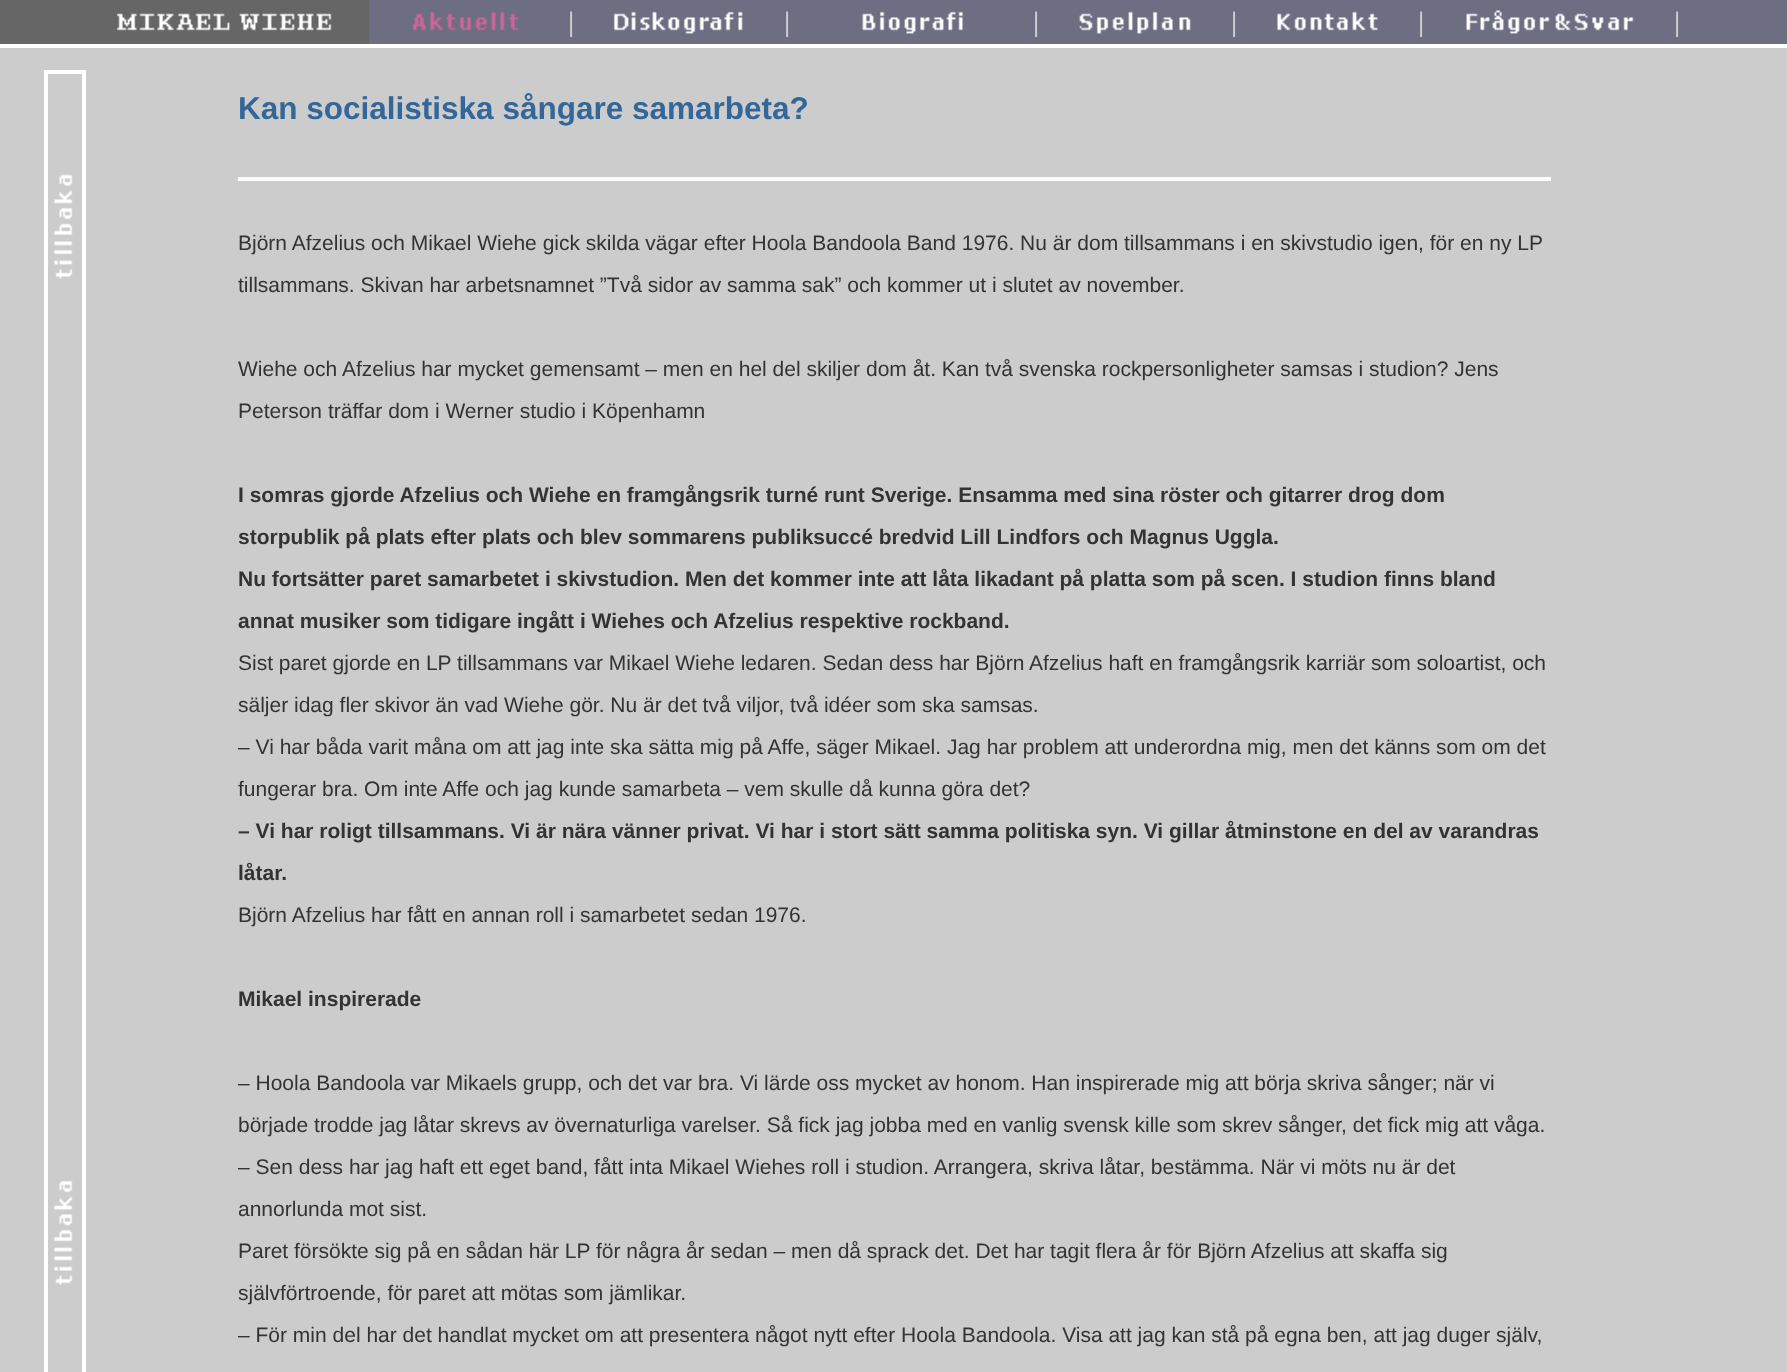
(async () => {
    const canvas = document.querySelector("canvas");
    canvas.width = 1787;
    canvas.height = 1372;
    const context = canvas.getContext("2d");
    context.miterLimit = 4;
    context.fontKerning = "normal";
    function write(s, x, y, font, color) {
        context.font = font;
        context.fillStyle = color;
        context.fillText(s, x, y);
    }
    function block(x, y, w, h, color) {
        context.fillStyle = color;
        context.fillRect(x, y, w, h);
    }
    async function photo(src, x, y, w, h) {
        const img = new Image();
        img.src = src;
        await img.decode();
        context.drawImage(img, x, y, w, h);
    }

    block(0, 0, 1787, 1372, "rgb(204, 204, 204)");
    block(0, 0, 369, 44, "rgb(102, 102, 102)");
    await photo("media/1.png", 117, 13, 215, 18);
    block(369, 0, 1418, 44, "rgb(110, 110, 130)");
    await photo("media/2.png", 412, 11, 107, 20);
    write("|", 568, 31, "bold 28px Liberation Serif", "rgb(204, 204, 204)");
    await photo("media/3.png", 613, 11, 130, 23);
    write("|", 784, 31, "bold 28px Liberation Serif", "rgb(204, 204, 204)");
    await photo("media/4.png", 862, 11, 101, 23);
    write("|", 1033, 31, "bold 28px Liberation Serif", "rgb(204, 204, 204)");
    await photo("media/5.png", 1079, 11, 112, 23);
    write("|", 1231, 31, "bold 28px Liberation Serif", "rgb(204, 204, 204)");
    await photo("media/6.png", 1277, 11, 101, 20);
    write("|", 1418, 31, "bold 28px Liberation Serif", "rgb(204, 204, 204)");
    await photo("media/7.png", 1466, 10, 168, 24);
    write("|", 1674, 31, "bold 28px Liberation Serif", "rgb(204, 204, 204)");
    block(0, 44, 1787, 4, "rgb(255, 255, 255)");
    context.strokeStyle = "rgb(255, 255, 255)";
    context.lineWidth = 2;
    context.strokeRect(45, 71, 40, 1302);
    context.strokeRect(47, 73, 36, 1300);
    await photo("media/8.png", 54, 174, 19, 105);
    await photo("media/9.png", 54, 1181, 19, 104);
    write("Kan socialistiska sångare samarbeta?", 238, 119, "bold 31.5px Liberation Sans", "rgb(51, 102, 153)");
    block(238, 177, 1313, 4, "rgb(255, 255, 255)");
    write("Björn Afzelius och Mikael Wiehe gick skilda vägar efter Hoola Bandoola Band 1976. Nu är dom tillsammans i en skivstudio igen, för en ny LP", 238, 250, "21px Liberation Sans", "rgb(51, 51, 51)");
    write("tillsammans. Skivan har arbetsnamnet ”Två sidor av samma sak” och kommer ut i slutet av november.", 238, 292, "21px Liberation Sans", "rgb(51, 51, 51)");
    write("Wiehe och Afzelius har mycket gemensamt – men en hel del skiljer dom åt. Kan två svenska rockpersonligheter samsas i studion? Jens", 238, 376, "21px Liberation Sans", "rgb(51, 51, 51)");
    write("Peterson träffar dom i Werner studio i Köpenhamn", 238, 418, "21px Liberation Sans", "rgb(51, 51, 51)");
    write("I somras gjorde Afzelius och Wiehe en framgångsrik turné runt Sverige. Ensamma med sina röster och gitarrer drog dom", 238, 502, "bold 21px Liberation Sans", "rgb(51, 51, 51)");
    write("storpublik på plats efter plats och blev sommarens publiksuccé bredvid Lill Lindfors och Magnus Uggla.", 238, 544, "bold 21px Liberation Sans", "rgb(51, 51, 51)");
    write("Nu fortsätter paret samarbetet i skivstudion. Men det kommer inte att låta likadant på platta som på scen. I studion finns bland", 238, 586, "bold 21px Liberation Sans", "rgb(51, 51, 51)");
    write("annat musiker som tidigare ingått i Wiehes och Afzelius respektive rockband.", 238, 628, "bold 21px Liberation Sans", "rgb(51, 51, 51)");
    write("Sist paret gjorde en LP tillsammans var Mikael Wiehe ledaren. Sedan dess har Björn Afzelius haft en framgångsrik karriär som soloartist, och", 238, 670, "21px Liberation Sans", "rgb(51, 51, 51)");
    write("säljer idag fler skivor än vad Wiehe gör. Nu är det två viljor, två idéer som ska samsas.", 238, 712, "21px Liberation Sans", "rgb(51, 51, 51)");
    write("– Vi har båda varit måna om att jag inte ska sätta mig på Affe, säger Mikael. Jag har problem att underordna mig, men det känns som om det", 238, 754, "21px Liberation Sans", "rgb(51, 51, 51)");
    write("fungerar bra. Om inte Affe och jag kunde samarbeta – vem skulle då kunna göra det?", 238, 796, "21px Liberation Sans", "rgb(51, 51, 51)");
    write("– Vi har roligt tillsammans. Vi är nära vänner privat. Vi har i stort sätt samma politiska syn. Vi gillar åtminstone en del av varandras", 238, 838, "bold 21px Liberation Sans", "rgb(51, 51, 51)");
    write("låtar.", 238, 880, "bold 21px Liberation Sans", "rgb(51, 51, 51)");
    write("Björn Afzelius har fått en annan roll i samarbetet sedan 1976.", 238, 922, "21px Liberation Sans", "rgb(51, 51, 51)");
    write("Mikael inspirerade", 238, 1006, "bold 21px Liberation Sans", "rgb(51, 51, 51)");
    write("– Hoola Bandoola var Mikaels grupp, och det var bra. Vi lärde oss mycket av honom. Han inspirerade mig att börja skriva sånger; när vi", 238, 1090, "21px Liberation Sans", "rgb(51, 51, 51)");
    write("började trodde jag låtar skrevs av övernaturliga varelser. Så fick jag jobba med en vanlig svensk kille som skrev sånger, det fick mig att våga.", 238, 1132, "21px Liberation Sans", "rgb(51, 51, 51)");
    write("– Sen dess har jag haft ett eget band, fått inta Mikael Wiehes roll i studion. Arrangera, skriva låtar, bestämma. När vi möts nu är det", 238, 1174, "21px Liberation Sans", "rgb(51, 51, 51)");
    write("annorlunda mot sist.", 238, 1216, "21px Liberation Sans", "rgb(51, 51, 51)");
    write("Paret försökte sig på en sådan här LP för några år sedan – men då sprack det. Det har tagit flera år för Björn Afzelius att skaffa sig", 238, 1258, "21px Liberation Sans", "rgb(51, 51, 51)");
    write("självförtroende, för paret att mötas som jämlikar.", 238, 1300, "21px Liberation Sans", "rgb(51, 51, 51)");
    write("– För min del har det handlat mycket om att presentera något nytt efter Hoola Bandoola. Visa att jag kan stå på egna ben, att jag duger själv,", 238, 1342, "21px Liberation Sans", "rgb(51, 51, 51)");
})();
